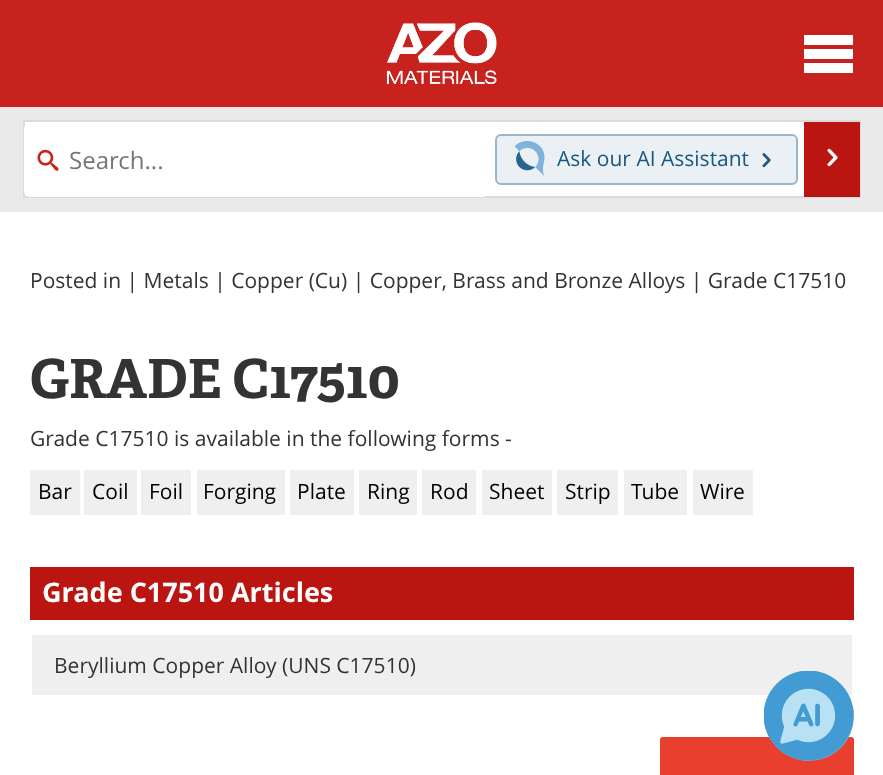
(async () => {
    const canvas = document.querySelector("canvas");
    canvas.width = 883;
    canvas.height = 775;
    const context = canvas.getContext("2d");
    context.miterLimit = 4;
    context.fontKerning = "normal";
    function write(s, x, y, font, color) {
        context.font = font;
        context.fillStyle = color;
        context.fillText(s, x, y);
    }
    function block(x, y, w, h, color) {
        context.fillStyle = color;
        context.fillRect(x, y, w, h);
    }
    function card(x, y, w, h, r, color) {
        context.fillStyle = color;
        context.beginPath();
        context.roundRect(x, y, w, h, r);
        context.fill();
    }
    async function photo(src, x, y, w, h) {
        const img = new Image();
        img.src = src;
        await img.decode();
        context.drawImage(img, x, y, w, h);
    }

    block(0, 0, 883, 775, "rgb(255, 255, 255)");
    block(0, 107, 883, 105, "rgb(234, 234, 234)");
    block(0, 0, 883, 107, "rgb(200, 34, 30)");
    await photo("media/1.png", 386, 22, 111, 62);
    context.fillStyle = "rgb(255, 255, 255)";
    context.beginPath();
    context.moveTo(804, 35);
    context.lineTo(853, 35);
    context.lineTo(853, 45);
    context.lineTo(804, 45);
    context.closePath();
    context.moveTo(804, 49);
    context.lineTo(853, 49);
    context.lineTo(853, 59);
    context.lineTo(804, 59);
    context.closePath();
    context.moveTo(804, 63);
    context.lineTo(853, 63);
    context.lineTo(853, 73);
    context.lineTo(804, 73);
    context.closePath();
    context.fill();
    block(25, 122, 779, 74, "rgb(255, 255, 255)");
    context.strokeStyle = "rgb(219, 219, 219)";
    context.lineWidth = 2;
    context.strokeRect(24, 121, 836, 76);
    card(24, 123, 465, 74, 6, "rgb(255, 255, 255)");
    await photo("media/2.png", 37, 149, 22, 22);
    write("Search...", 69, 169, "24px Open Sans", "rgb(119, 119, 119)");
    context.fillStyle = "rgb(235, 240, 245)";
    context.beginPath();
    context.roundRect(496, 135, 301, 49, 5);
    context.fill();
    context.strokeStyle = "rgb(151, 183, 206)";
    context.stroke();
    await photo("media/3.png", 515, 141, 30, 35);
    write("Ask our AI Assistant", 557, 166, "21px Open Sans", "rgb(26, 86, 126)");
    await photo("media/4.png", 762, 153, 9, 15);
    block(804, 122, 56, 75, "rgb(187, 21, 17)");
    await photo("media/5.png", 827, 148, 11, 19);
    write("Posted in | Metals | Copper (Cu) | Copper, Brass and Bronze Alloys | Grade C17510", 30, 288, "21px Open Sans", "rgb(51, 51, 51)");
    write("GRADE C17510", 30, 398, "bold 54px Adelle", "rgb(51, 51, 51)");
    write("Grade C17510 is available in the following forms -", 30, 446, "21px Open Sans", "rgb(51, 51, 51)");
    block(30, 470, 50, 45, "rgb(239, 239, 239)");
    write("Bar", 38, 499, "21px Open Sans", "rgb(0, 0, 0)");
    block(84, 470, 53, 45, "rgb(239, 239, 239)");
    write("Coil", 92, 499, "21px Open Sans", "rgb(0, 0, 0)");
    block(141, 470, 50, 45, "rgb(239, 239, 239)");
    write("Foil", 149, 499, "21px Open Sans", "rgb(0, 0, 0)");
    block(197, 470, 88, 45, "rgb(239, 239, 239)");
    write("Forging", 203, 499, "21px Open Sans", "rgb(0, 0, 0)");
    block(290, 470, 64, 45, "rgb(239, 239, 239)");
    write("Plate", 297, 499, "21px Open Sans", "rgb(0, 0, 0)");
    block(359, 470, 58, 45, "rgb(239, 239, 239)");
    write("Ring", 367, 499, "21px Open Sans", "rgb(0, 0, 0)");
    block(422, 470, 54, 45, "rgb(239, 239, 239)");
    write("Rod", 430, 499, "21px Open Sans", "rgb(0, 0, 0)");
    block(482, 470, 70, 45, "rgb(239, 239, 239)");
    write("Sheet", 489, 499, "21px Open Sans", "rgb(0, 0, 0)");
    block(557, 470, 61, 45, "rgb(239, 239, 239)");
    write("Strip", 565, 499, "21px Open Sans", "rgb(0, 0, 0)");
    block(624, 470, 63, 45, "rgb(239, 239, 239)");
    write("Tube", 631, 499, "21px Open Sans", "rgb(0, 0, 0)");
    block(693, 470, 60, 45, "rgb(239, 239, 239)");
    write("Wire", 700, 499, "21px Open Sans", "rgb(0, 0, 0)");
    block(30, 567, 824, 53, "rgb(187, 21, 17)");
    write("Grade C17510 Articles", 42, 602, "bold 27px Open Sans", "rgb(255, 255, 255)");
    block(32, 635, 820, 60, "rgb(239, 239, 239)");
    write("Beryllium Copper Alloy (UNS C17510)", 54, 673, "21px Open Sans", "rgb(51, 51, 51)");
    card(660, 737, 194, 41, 3, "rgb(233, 63, 46)");
    context.fillStyle = "rgb(127, 179, 219)";
    context.beginPath();
    context.arc(809, 716, 45, 0, Math.PI * 2);
    context.fill();
    await photo("media/6.png", 764, 671, 90, 90);
})();
